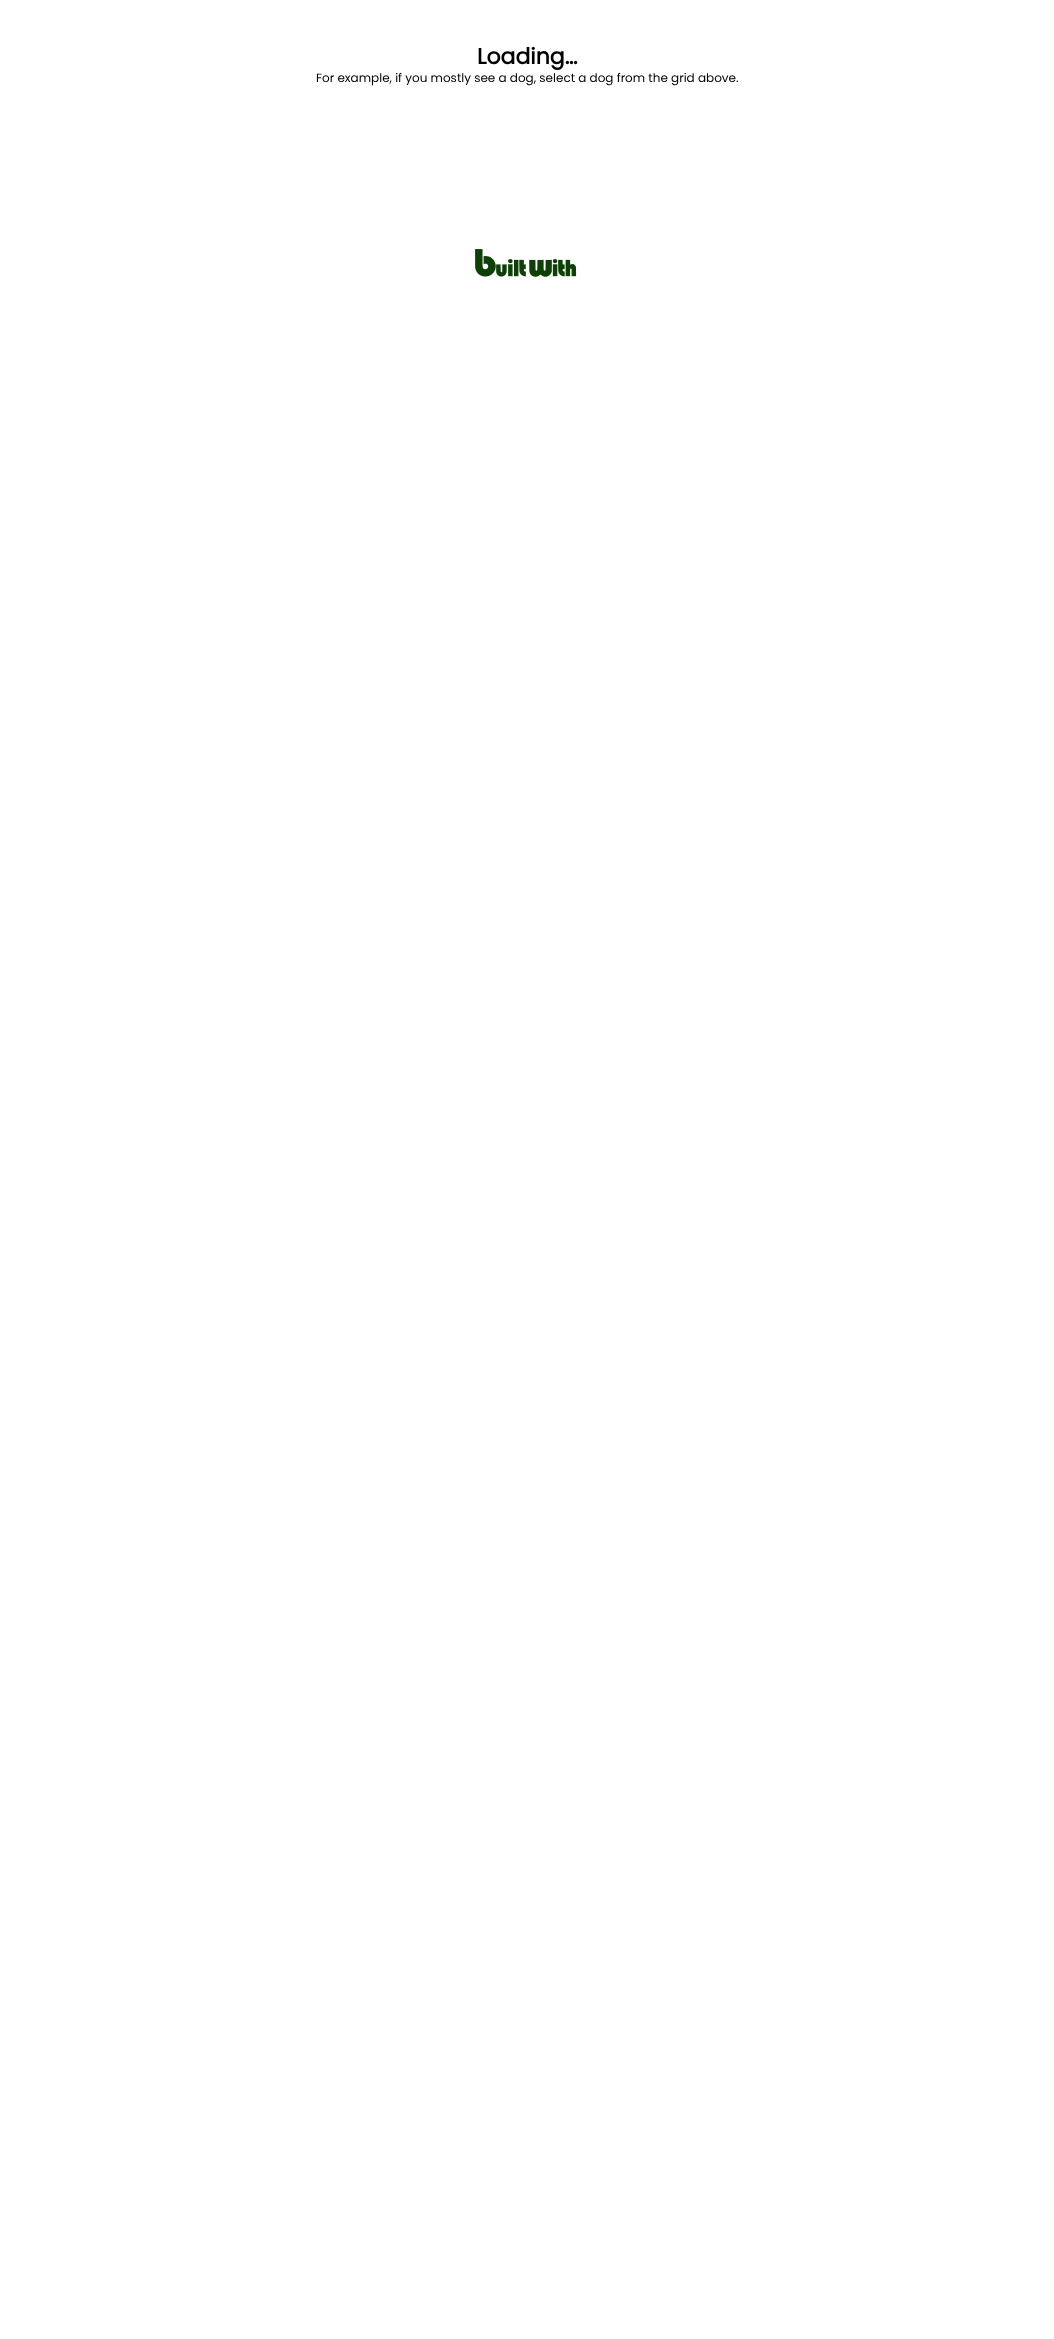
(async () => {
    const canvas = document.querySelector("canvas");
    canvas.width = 1054;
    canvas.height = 2339;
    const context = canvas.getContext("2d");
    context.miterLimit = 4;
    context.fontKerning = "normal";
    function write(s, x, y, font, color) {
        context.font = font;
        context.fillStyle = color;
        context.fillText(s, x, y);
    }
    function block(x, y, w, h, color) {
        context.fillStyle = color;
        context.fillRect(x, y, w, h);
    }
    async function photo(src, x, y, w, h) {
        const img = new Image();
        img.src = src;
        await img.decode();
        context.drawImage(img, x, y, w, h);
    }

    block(0, 0, 1054, 2339, "rgb(255, 255, 255)");
    write("Loading…", 477, 64, "bold 22px Poppins", "rgb(0, 0, 0)");
    write("For example, if you mostly see a dog, select a dog from the grid above.", 316, 82, "12px Poppins", "rgb(0, 0, 0)");
    await photo("media/1.png", 475, 249, 102, 28);
})();
